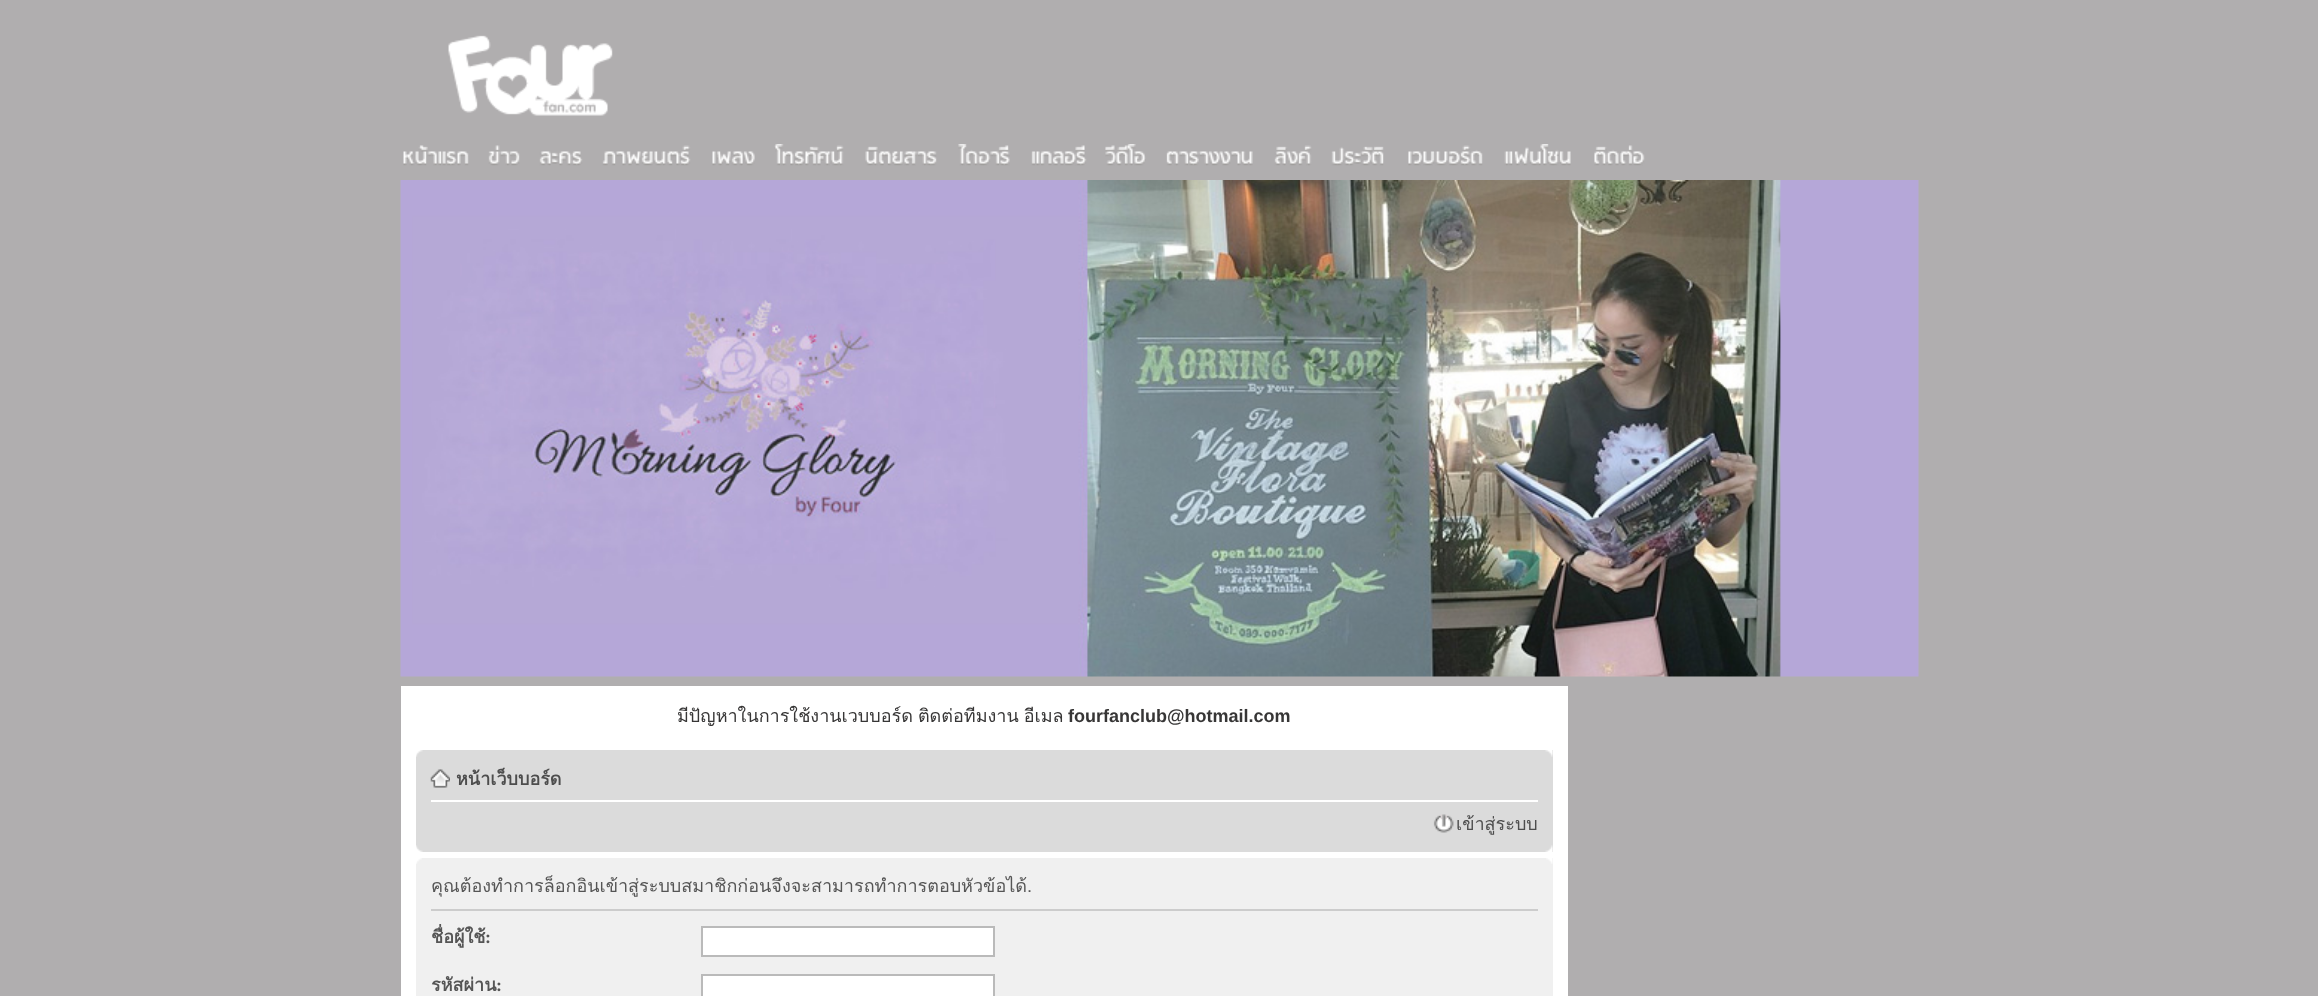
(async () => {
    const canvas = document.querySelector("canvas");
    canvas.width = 2318;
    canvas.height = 996;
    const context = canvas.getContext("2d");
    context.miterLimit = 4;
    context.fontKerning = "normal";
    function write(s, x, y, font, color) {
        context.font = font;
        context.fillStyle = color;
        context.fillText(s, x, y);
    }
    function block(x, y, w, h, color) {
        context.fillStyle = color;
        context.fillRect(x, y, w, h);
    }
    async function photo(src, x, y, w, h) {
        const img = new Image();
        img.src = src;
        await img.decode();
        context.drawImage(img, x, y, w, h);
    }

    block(0, 0, 2318, 996, "rgb(176, 174, 175)");
    await photo("media/1.png", 448, 35, 165, 81);
    await photo("media/2.png", 403, 145, 66, 21);
    await photo("media/3.png", 488, 145, 32, 21);
    await photo("media/4.png", 539, 151, 44, 15);
    await photo("media/5.png", 602, 145, 89, 21);
    await photo("media/6.png", 712, 151, 43, 15);
    await photo("media/7.png", 774, 144, 70, 22);
    await photo("media/8.png", 865, 146, 72, 20);
    await photo("media/9.png", 958, 144, 52, 22);
    await photo("media/10.png", 1031, 145, 56, 21);
    await photo("media/11.png", 1105, 144, 41, 22);
    await photo("media/12.png", 1166, 151, 87, 15);
    await photo("media/13.png", 1274, 145, 38, 21);
    await photo("media/14.png", 1331, 146, 53, 20);
    await photo("media/15.png", 1408, 145, 75, 21);
    await photo("media/16.png", 1504, 144, 67, 22);
    await photo("media/17.png", 1594, 145, 51, 21);
    await photo("media/18.png", 400, 180, 1519, 497);
    block(401, 686, 1167, 310, "rgb(255, 255, 255)");
    context.wordSpacing = "-1px";
    write("มีปัญหาในการใช้งานเวบบอร์ด ติดต่อทีมงาน อีเมล", 677, 722, "18px Loma", "rgb(55, 54, 54)");
    context.wordSpacing = "0px";
    write("fourfanclub@hotmail.com", 1068, 722, "bold 18px Liberation Sans", "rgb(55, 54, 54)");
    block(416, 750, 1137, 102, "rgb(219, 219, 219)");
    await photo("media/19.png", 416, 750, 7, 7);
    await photo("media/20.png", 1545, 750, 8, 7);
    block(431, 800, 1107, 2, "rgb(255, 255, 255)");
    await photo("media/21.png", 430, 769, 20, 19);
    write("หน้าเว็บบอร์ด", 456, 785, "bold 18px Loma", "rgb(77, 77, 77)");
    await photo("media/22.png", 1433, 814, 21, 19);
    write("เข้าสู่ระบบ", 1456, 830, "18px Loma", "rgb(77, 77, 77)");
    await photo("media/23.png", 416, 845, 7, 7);
    await photo("media/24.png", 1545, 845, 8, 7);
    block(416, 858, 1137, 138, "rgb(240, 240, 240)");
    await photo("media/25.png", 416, 858, 6, 6);
    await photo("media/26.png", 1546, 858, 7, 6);
    block(431, 909, 1107, 2, "rgb(204, 204, 204)");
    context.save();
    context.beginPath();
    context.rect(431, 866, 1107, 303);
    context.clip();
    write("คุณต้องทำการล็อกอินเข้าสู่ระบบสมาชิกก่อนจึงจะสามารถทำการตอบหัวข้อได้.", 431, 892, "18px Loma", "rgb(85, 85, 85)");
    context.restore();
    context.save();
    context.beginPath();
    context.rect(431, 920, 1107, 48);
    context.clip();
    write("ชื่อผู้ใช้", 431, 943, "bold 18px Loma", "rgb(85, 85, 85)");
    context.restore();
    write(":", 485, 943, "bold 18px Liberation Serif", "rgb(85, 85, 85)");
    context.fillStyle = "rgb(255, 255, 255)";
    context.beginPath();
    context.rect(702, 927, 292, 29);
    context.fill();
    context.strokeStyle = "rgb(186, 186, 186)";
    context.lineWidth = 2;
    context.stroke();
    write("รหัสผ่าน", 431, 991, "bold 18px Loma", "rgb(85, 85, 85)");
    write(":", 496, 991, "bold 18px Liberation Serif", "rgb(85, 85, 85)");
    context.fillStyle = "rgb(255, 255, 255)";
    context.beginPath();
    context.rect(702, 975, 292, 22);
    context.fill();
    context.stroke();
})();
